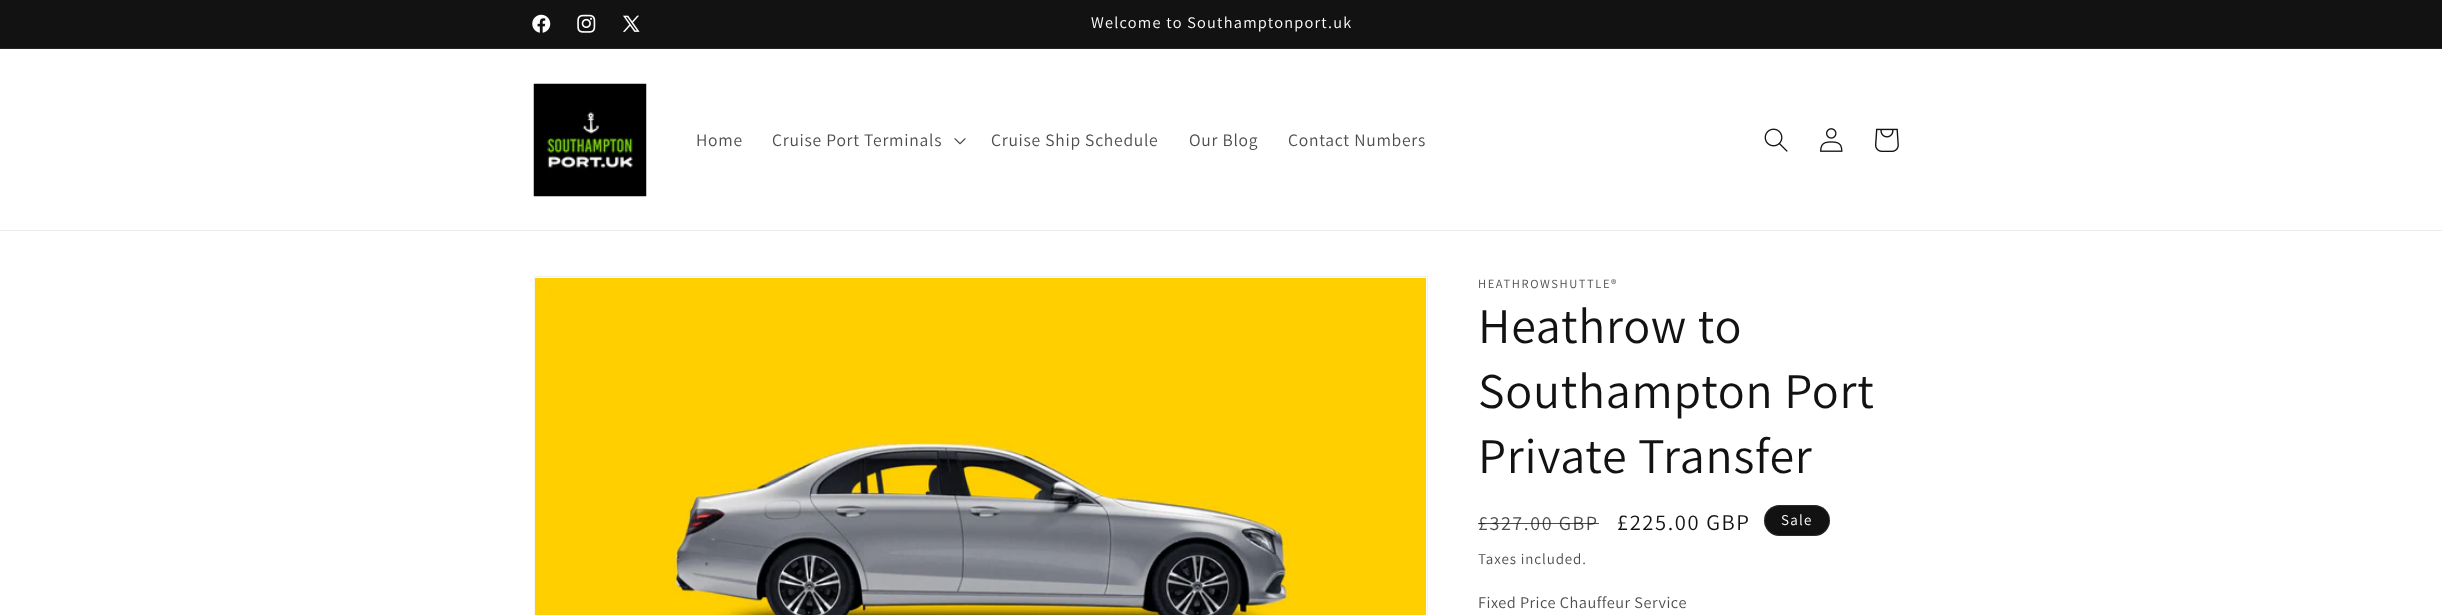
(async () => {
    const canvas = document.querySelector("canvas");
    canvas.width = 2442;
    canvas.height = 615;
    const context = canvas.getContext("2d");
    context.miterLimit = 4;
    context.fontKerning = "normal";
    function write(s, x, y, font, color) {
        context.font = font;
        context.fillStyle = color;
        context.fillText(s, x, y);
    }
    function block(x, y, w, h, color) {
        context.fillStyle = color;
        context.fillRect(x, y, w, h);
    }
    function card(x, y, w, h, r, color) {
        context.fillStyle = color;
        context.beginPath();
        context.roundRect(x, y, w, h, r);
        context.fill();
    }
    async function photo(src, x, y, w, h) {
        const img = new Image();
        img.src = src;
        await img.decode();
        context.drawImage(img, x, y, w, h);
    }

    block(0, 0, 2442, 615, "rgb(255, 255, 255)");
    block(0, 0, 2442, 48, "rgb(18, 18, 18)");
    block(0, 48, 2442, 1, "rgb(37, 37, 37)");
    await photo("media/1.png", 532, 14, 19, 19);
    await photo("media/2.png", 577, 14, 19, 19);
    await photo("media/3.png", 623, 15, 17, 17);
    context.letterSpacing = "1.25px";
    write("Welcome to Southamptonport.uk", 1091, 28, "16.25px Assistant", "rgb(255, 255, 255)");
    block(0, 230, 2442, 1, "rgb(236, 236, 236)");
    await photo("media/4.png", 533, 83, 114, 114);
    context.letterSpacing = "0.75px";
    write("Home", 696, 146, "17.5px Assistant", "rgb(77, 77, 77)");
    write("Cruise Port Terminals", 772, 146, "17.5px Assistant", "rgb(77, 77, 77)");
    await photo("media/5.png", 954, 138, 12, 7);
    write("Cruise Ship Schedule", 991, 146, "17.5px Assistant", "rgb(77, 77, 77)");
    write("Our Blog", 1189, 146, "17.5px Assistant", "rgb(77, 77, 77)");
    write("Contact Numbers", 1288, 146, "17.5px Assistant", "rgb(77, 77, 77)");
    await photo("media/6.png", 1764, 128, 24, 24);
    await photo("media/7.png", 1820, 128, 23, 24);
    await photo("media/8.png", 1875, 128, 24, 24);
    context.strokeStyle = "rgb(243, 243, 243)";
    context.strokeRect(534.5, 276.5, 893, 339);
    await photo("media/9.png", 535, 278, 891, 337);
    context.letterSpacing = "1.6px";
    write("HEATHROWSHUTTLE®", 1478, 288, "12.5px Assistant", "rgb(77, 77, 77)");
    context.letterSpacing = "0.75px";
    write("Heathrow to", 1478, 343, "50px Assistant", "rgb(18, 18, 18)");
    write("Southampton Port", 1478, 408, "50px Assistant", "rgb(18, 18, 18)");
    write("Private Transfer", 1478, 473, "50px Assistant", "rgb(18, 18, 18)");
    context.letterSpacing = "1.6px";
    write("£327.00 GBP", 1478, 530, "20px Assistant", "rgb(77, 77, 77)");
    block(1478, 523, 121, 1, "rgba(18, 18, 18, 0.75)");
    write("£225.00 GBP", 1617, 530, "22.5px Assistant", "rgb(18, 18, 18)");
    card(1764, 505, 66, 31, 15.5, "rgb(18, 18, 18)");
    context.beginPath();
    context.roundRect(1764.5, 505.5, 65, 30, 15);
    context.strokeStyle = "rgba(255, 255, 255, 0.1)";
    context.stroke();
    context.letterSpacing = "1.25px";
    write("Sale", 1781, 525, "15px Assistant", "rgb(255, 255, 255)");
    context.letterSpacing = "0.9px";
    write("Taxes included.", 1478, 564, "15px Assistant", "rgb(77, 77, 77)");
    context.letterSpacing = "0.5px";
    write("Fixed Price Chauffeur Service", 1478, 608, "16.25px Assistant", "rgb(77, 77, 77)");
})();
